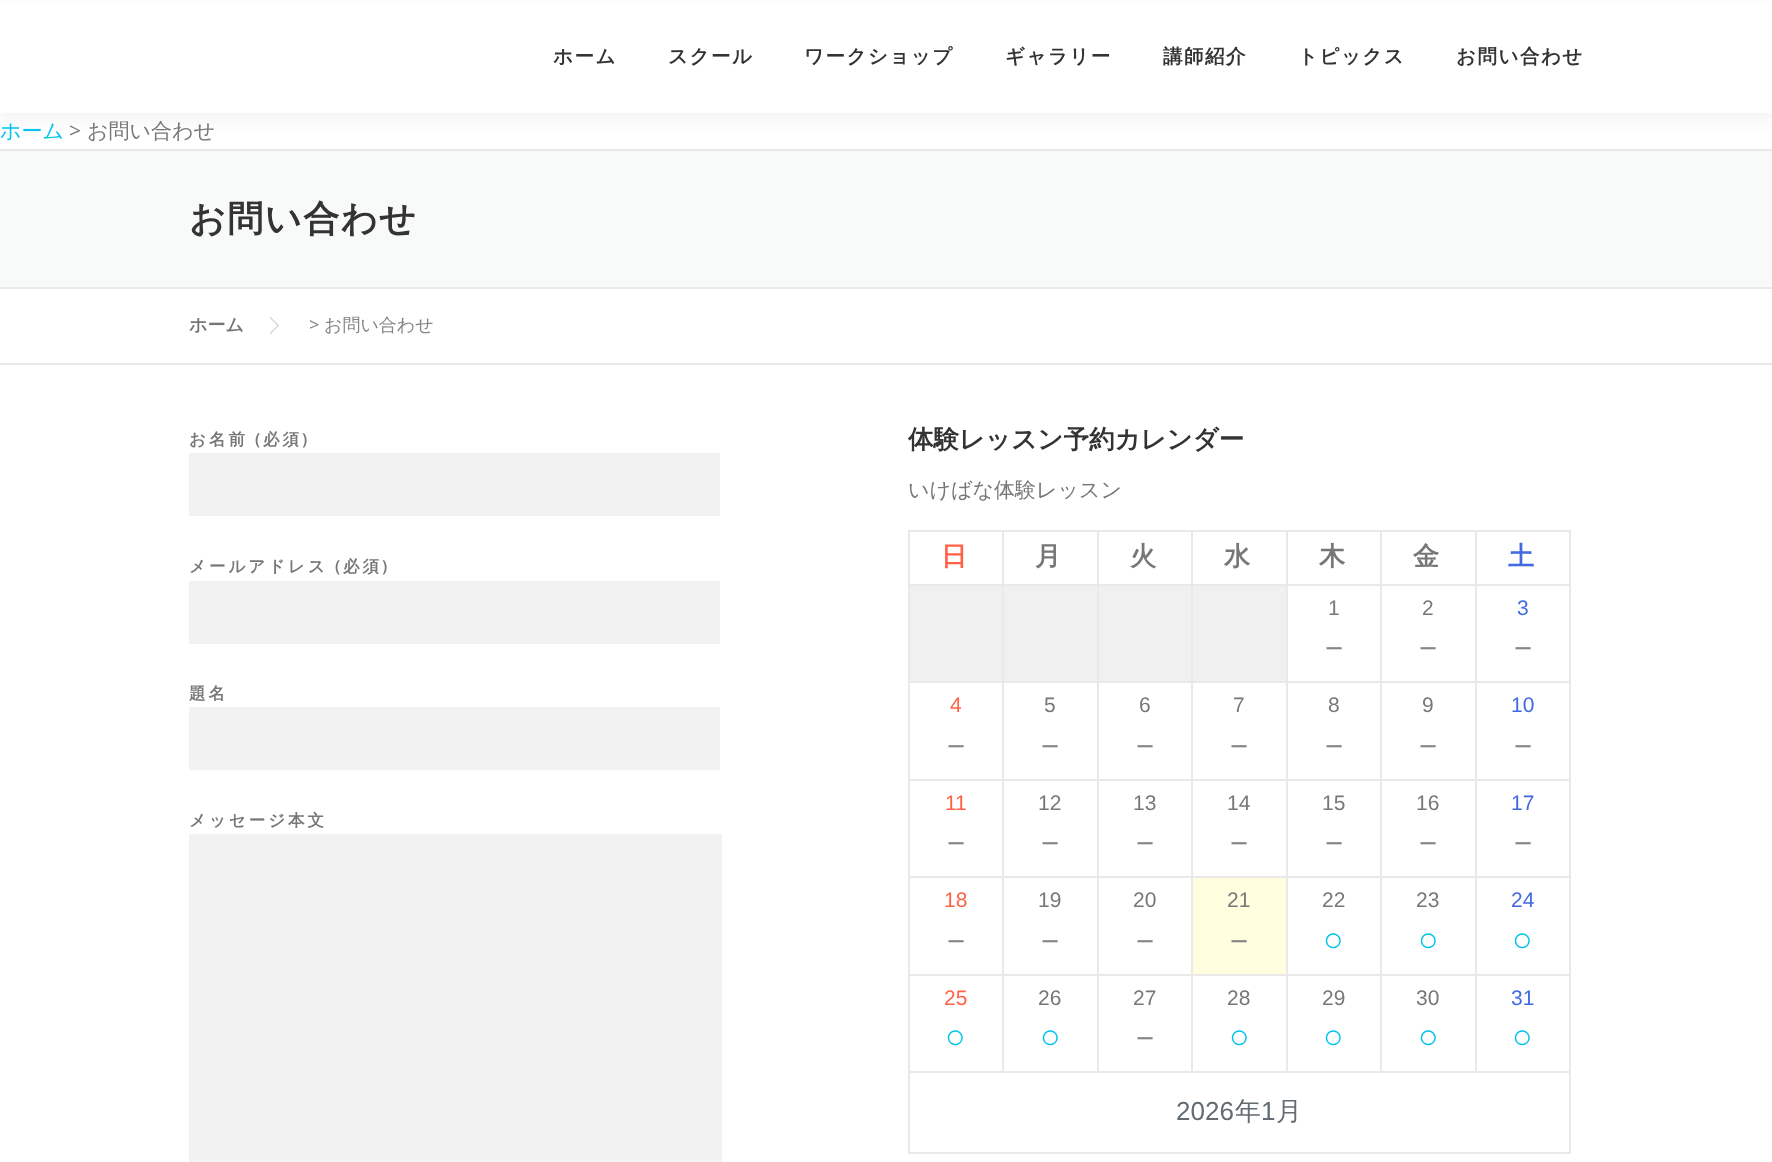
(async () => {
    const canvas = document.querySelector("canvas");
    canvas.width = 1772;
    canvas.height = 1162;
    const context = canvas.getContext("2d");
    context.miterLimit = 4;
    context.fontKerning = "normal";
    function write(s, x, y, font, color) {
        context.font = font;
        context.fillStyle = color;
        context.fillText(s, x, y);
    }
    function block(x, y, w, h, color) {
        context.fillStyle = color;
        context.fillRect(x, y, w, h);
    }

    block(0, 0, 1772, 1162, "rgb(255, 255, 255)");
    context.fillStyle = "rgba(50, 50, 50, 0.06)";
    context.filter = "blur(7.5px)";
    context.beginPath();
    context.rect(0, 8, 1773, 112);
    context.fill();
    context.filter = "none";
    block(0, 2, 1772, 111, "rgb(255, 255, 255)");
    context.letterSpacing = "1.5px";
    write("ホーム", 553, 63, "bold 19.5px WenQuanYi Zen Hei", "rgb(51, 51, 51)");
    write("スクール", 668, 63, "bold 19.5px WenQuanYi Zen Hei", "rgb(51, 51, 51)");
    write("ワークショップ", 804, 63, "bold 19.5px WenQuanYi Zen Hei", "rgb(51, 51, 51)");
    write("ギャラリー", 1005, 63, "bold 19.5px WenQuanYi Zen Hei", "rgb(51, 51, 51)");
    write("講師紹介", 1163, 63, "bold 19.5px WenQuanYi Zen Hei", "rgb(51, 51, 51)");
    write("トピックス", 1298, 63, "bold 19.5px WenQuanYi Zen Hei", "rgb(51, 51, 51)");
    write("お問い合わせ", 1456, 63, "bold 19.5px WenQuanYi Zen Hei", "rgb(51, 51, 51)");
    context.letterSpacing = "0px";
    write("ホーム", 0, 138, "500 21px WenQuanYi Zen Hei", "rgb(3, 196, 235)");
    write(">", 69, 138, "21px Open Sans", "rgb(119, 119, 119)");
    write("お問い合わせ", 87, 138, "500 21px WenQuanYi Zen Hei", "rgb(119, 119, 119)");
    block(0, 151, 1772, 136, "rgb(248, 249, 249)");
    block(0, 149, 1772, 2, "rgb(233, 233, 233)");
    block(0, 287, 1772, 2, "rgb(233, 233, 233)");
    context.letterSpacing = "1.5px";
    write("お問い合わせ", 189, 231, "bold 36px WenQuanYi Zen Hei", "rgb(51, 51, 51)");
    block(0, 363, 1772, 2, "rgb(233, 233, 233)");
    context.letterSpacing = "0px";
    write("ホーム", 189, 331, "bold 18px WenQuanYi Zen Hei", "rgb(119, 119, 119)");
    context.fillStyle = "rgb(204, 204, 204)";
    context.beginPath();
    context.moveTo(270, 334.5);
    context.lineTo(270, 316.5);
    context.lineTo(279, 325.5);
    context.closePath();
    context.fill();
    context.fillStyle = "rgb(255, 255, 255)";
    context.beginPath();
    context.moveTo(270, 333);
    context.lineTo(270, 318);
    context.lineTo(277.5, 325.5);
    context.closePath();
    context.fill();
    write(">", 309, 331, "18px Open Sans", "rgb(133, 133, 133)");
    write("お問い合わせ", 324, 331, "500 18px WenQuanYi Zen Hei", "rgb(133, 133, 133)");
    context.letterSpacing = "3px";
    write("お名前", 189, 445, "bold 16.5px WenQuanYi Zen Hei", "rgb(119, 119, 119)");
    write("(", 255, 445, "600 16.5px Open Sans", "rgb(119, 119, 119)");
    write("必須", 263, 445, "bold 16.5px WenQuanYi Zen Hei", "rgb(119, 119, 119)");
    write(")", 302, 445, "600 16.5px Open Sans", "rgb(119, 119, 119)");
    block(189, 453, 531, 63, "rgb(242, 242, 242)");
    write("メールアドレス", 189, 572, "bold 16.5px WenQuanYi Zen Hei", "rgb(119, 119, 119)");
    write("(", 335, 572, "600 16.5px Open Sans", "rgb(119, 119, 119)");
    write("必須", 343, 572, "bold 16.5px WenQuanYi Zen Hei", "rgb(119, 119, 119)");
    write(")", 382, 572, "600 16.5px Open Sans", "rgb(119, 119, 119)");
    block(189, 581, 531, 63, "rgb(242, 242, 242)");
    write("題名", 189, 699, "bold 16.5px WenQuanYi Zen Hei", "rgb(119, 119, 119)");
    block(189, 707, 531, 63, "rgb(242, 242, 242)");
    write("メッセージ本文", 189, 826, "bold 16.5px WenQuanYi Zen Hei", "rgb(119, 119, 119)");
    block(189, 834, 533, 328, "rgb(242, 242, 242)");
    context.letterSpacing = "0px";
    write("体験レッスン予約カレンダー", 908, 448, "bold 25.5px WenQuanYi Zen Hei", "rgb(51, 51, 51)");
    write("いけばな体験レッスン", 908, 497, "500 21px WenQuanYi Zen Hei", "rgb(119, 119, 119)");
    block(908, 530, 663, 2, "rgb(233, 233, 233)");
    block(1569, 530, 2, 624, "rgb(233, 233, 233)");
    block(908, 1152, 663, 2, "rgb(233, 233, 233)");
    block(908, 530, 2, 624, "rgb(233, 233, 233)");
    context.letterSpacing = "3px";
    write("日", 941, 565, "bold 26px WenQuanYi Zen Hei", "rgb(255, 99, 71)");
    block(1475, 584, 96, 2, "rgb(233, 233, 233)");
    block(1475, 681, 96, 2, "rgb(233, 233, 233)");
    block(1475, 779, 96, 2, "rgb(233, 233, 233)");
    block(1475, 876, 96, 2, "rgb(233, 233, 233)");
    block(1475, 974, 96, 2, "rgb(233, 233, 233)");
    block(1475, 1071, 96, 2, "rgb(233, 233, 233)");
    block(1475, 974, 2, 99, "rgb(233, 233, 233)");
    block(1380, 974, 96, 2, "rgb(233, 233, 233)");
    block(1475, 876, 2, 99, "rgb(233, 233, 233)");
    block(1380, 876, 96, 2, "rgb(233, 233, 233)");
    block(1475, 779, 2, 99, "rgb(233, 233, 233)");
    block(1380, 779, 96, 2, "rgb(233, 233, 233)");
    block(1475, 681, 2, 99, "rgb(233, 233, 233)");
    block(1380, 681, 96, 2, "rgb(233, 233, 233)");
    block(1475, 584, 2, 99, "rgb(233, 233, 233)");
    block(1380, 584, 96, 2, "rgb(233, 233, 233)");
    block(1380, 1071, 96, 2, "rgb(233, 233, 233)");
    block(1380, 974, 2, 99, "rgb(233, 233, 233)");
    block(1286, 974, 96, 2, "rgb(233, 233, 233)");
    block(1380, 876, 2, 99, "rgb(233, 233, 233)");
    block(1286, 876, 96, 2, "rgb(233, 233, 233)");
    block(1380, 779, 2, 99, "rgb(233, 233, 233)");
    block(1286, 779, 96, 2, "rgb(233, 233, 233)");
    block(1380, 681, 2, 99, "rgb(233, 233, 233)");
    block(1286, 681, 96, 2, "rgb(233, 233, 233)");
    block(1380, 584, 2, 99, "rgb(233, 233, 233)");
    block(1286, 584, 96, 2, "rgb(233, 233, 233)");
    block(1286, 1071, 96, 2, "rgb(233, 233, 233)");
    block(1286, 974, 2, 99, "rgb(233, 233, 233)");
    block(1191, 974, 96, 2, "rgb(233, 233, 233)");
    block(1286, 876, 2, 99, "rgb(233, 233, 233)");
    block(1191, 876, 96, 2, "rgb(233, 233, 233)");
    block(1286, 779, 2, 99, "rgb(233, 233, 233)");
    block(1191, 779, 96, 2, "rgb(233, 233, 233)");
    block(1286, 681, 2, 99, "rgb(233, 233, 233)");
    block(1191, 681, 96, 2, "rgb(233, 233, 233)");
    block(1286, 584, 2, 99, "rgb(233, 233, 233)");
    block(1191, 584, 96, 2, "rgb(233, 233, 233)");
    block(1191, 1071, 96, 2, "rgb(233, 233, 233)");
    block(1191, 974, 2, 99, "rgb(233, 233, 233)");
    block(1097, 974, 96, 2, "rgb(233, 233, 233)");
    block(1191, 876, 2, 99, "rgb(233, 233, 233)");
    block(1097, 876, 96, 2, "rgb(233, 233, 233)");
    block(1191, 779, 2, 99, "rgb(233, 233, 233)");
    block(1097, 779, 96, 2, "rgb(233, 233, 233)");
    block(1191, 681, 2, 99, "rgb(233, 233, 233)");
    block(1097, 681, 96, 2, "rgb(233, 233, 233)");
    block(1191, 584, 2, 99, "rgb(233, 233, 233)");
    block(1097, 584, 96, 2, "rgb(233, 233, 233)");
    block(1097, 1071, 96, 2, "rgb(233, 233, 233)");
    block(1097, 974, 2, 99, "rgb(233, 233, 233)");
    block(1002, 974, 96, 2, "rgb(233, 233, 233)");
    block(1097, 876, 2, 99, "rgb(233, 233, 233)");
    block(1002, 876, 96, 2, "rgb(233, 233, 233)");
    block(1097, 779, 2, 99, "rgb(233, 233, 233)");
    block(1002, 779, 96, 2, "rgb(233, 233, 233)");
    block(1097, 681, 2, 99, "rgb(233, 233, 233)");
    block(1002, 681, 96, 2, "rgb(233, 233, 233)");
    block(1097, 584, 2, 99, "rgb(233, 233, 233)");
    block(1002, 584, 96, 2, "rgb(233, 233, 233)");
    block(1002, 1071, 96, 2, "rgb(233, 233, 233)");
    block(1002, 974, 2, 99, "rgb(233, 233, 233)");
    block(908, 974, 96, 2, "rgb(233, 233, 233)");
    block(1002, 876, 2, 99, "rgb(233, 233, 233)");
    block(908, 876, 96, 2, "rgb(233, 233, 233)");
    block(1002, 779, 2, 99, "rgb(233, 233, 233)");
    block(908, 779, 96, 2, "rgb(233, 233, 233)");
    block(1002, 681, 2, 99, "rgb(233, 233, 233)");
    block(908, 681, 96, 2, "rgb(233, 233, 233)");
    block(1002, 584, 2, 99, "rgb(233, 233, 233)");
    block(908, 584, 96, 2, "rgb(233, 233, 233)");
    block(1002, 530, 2, 55, "rgb(233, 233, 233)");
    write("月", 1035, 565, "bold 26px WenQuanYi Zen Hei", "rgb(119, 119, 119)");
    block(1097, 530, 2, 55, "rgb(233, 233, 233)");
    write("火", 1130, 565, "bold 26px WenQuanYi Zen Hei", "rgb(119, 119, 119)");
    block(1191, 530, 2, 55, "rgb(233, 233, 233)");
    write("水", 1224, 565, "bold 26px WenQuanYi Zen Hei", "rgb(119, 119, 119)");
    block(1286, 530, 2, 55, "rgb(233, 233, 233)");
    write("木", 1319, 565, "bold 26px WenQuanYi Zen Hei", "rgb(119, 119, 119)");
    block(1380, 530, 2, 55, "rgb(233, 233, 233)");
    write("金", 1413, 565, "bold 26px WenQuanYi Zen Hei", "rgb(119, 119, 119)");
    block(1475, 530, 2, 55, "rgb(233, 233, 233)");
    write("土", 1508, 565, "bold 26px WenQuanYi Zen Hei", "rgb(65, 105, 225)");
    block(910, 586, 92, 95, "rgb(240, 240, 240)");
    block(1004, 586, 93, 95, "rgb(240, 240, 240)");
    block(1099, 586, 92, 95, "rgb(240, 240, 240)");
    block(1193, 586, 93, 95, "rgb(240, 240, 240)");
    context.letterSpacing = "0px";
    write("1", 1328, 615, "21px Liberation Sans", "rgb(119, 119, 119)");
    write("－", 1317, 658, "500 34px WenQuanYi Zen Hei", "rgb(133, 133, 133)");
    write("2", 1422, 615, "21px Liberation Sans", "rgb(119, 119, 119)");
    write("－", 1411, 658, "500 34px WenQuanYi Zen Hei", "rgb(133, 133, 133)");
    write("3", 1517, 615, "21px Liberation Sans", "rgb(65, 105, 225)");
    write("－", 1506, 658, "500 34px WenQuanYi Zen Hei", "rgb(133, 133, 133)");
    write("4", 950, 712, "21px Liberation Sans", "rgb(255, 99, 71)");
    write("－", 939, 756, "500 34px WenQuanYi Zen Hei", "rgb(133, 133, 133)");
    write("5", 1044, 712, "21px Liberation Sans", "rgb(119, 119, 119)");
    write("－", 1033, 756, "500 34px WenQuanYi Zen Hei", "rgb(133, 133, 133)");
    write("6", 1139, 712, "21px Liberation Sans", "rgb(119, 119, 119)");
    write("－", 1128, 756, "500 34px WenQuanYi Zen Hei", "rgb(133, 133, 133)");
    write("7", 1233, 712, "21px Liberation Sans", "rgb(119, 119, 119)");
    write("－", 1222, 756, "500 34px WenQuanYi Zen Hei", "rgb(133, 133, 133)");
    write("8", 1328, 712, "21px Liberation Sans", "rgb(119, 119, 119)");
    write("－", 1317, 756, "500 34px WenQuanYi Zen Hei", "rgb(133, 133, 133)");
    write("9", 1422, 712, "21px Liberation Sans", "rgb(119, 119, 119)");
    write("－", 1411, 756, "500 34px WenQuanYi Zen Hei", "rgb(133, 133, 133)");
    write("10", 1511, 712, "21px Liberation Sans", "rgb(65, 105, 225)");
    write("－", 1506, 756, "500 34px WenQuanYi Zen Hei", "rgb(133, 133, 133)");
    write("11", 945, 810, "21px Liberation Sans", "rgb(255, 99, 71)");
    write("－", 939, 853, "500 34px WenQuanYi Zen Hei", "rgb(133, 133, 133)");
    write("12", 1038, 810, "21px Liberation Sans", "rgb(119, 119, 119)");
    write("－", 1033, 853, "500 34px WenQuanYi Zen Hei", "rgb(133, 133, 133)");
    write("13", 1133, 810, "21px Liberation Sans", "rgb(119, 119, 119)");
    write("－", 1128, 853, "500 34px WenQuanYi Zen Hei", "rgb(133, 133, 133)");
    write("14", 1227, 810, "21px Liberation Sans", "rgb(119, 119, 119)");
    write("－", 1222, 853, "500 34px WenQuanYi Zen Hei", "rgb(133, 133, 133)");
    write("15", 1322, 810, "21px Liberation Sans", "rgb(119, 119, 119)");
    write("－", 1317, 853, "500 34px WenQuanYi Zen Hei", "rgb(133, 133, 133)");
    write("16", 1416, 810, "21px Liberation Sans", "rgb(119, 119, 119)");
    write("－", 1411, 853, "500 34px WenQuanYi Zen Hei", "rgb(133, 133, 133)");
    write("17", 1511, 810, "21px Liberation Sans", "rgb(65, 105, 225)");
    write("－", 1506, 853, "500 34px WenQuanYi Zen Hei", "rgb(133, 133, 133)");
    write("18", 944, 907, "21px Liberation Sans", "rgb(255, 99, 71)");
    write("－", 939, 951, "500 34px WenQuanYi Zen Hei", "rgb(133, 133, 133)");
    write("19", 1038, 907, "21px Liberation Sans", "rgb(119, 119, 119)");
    write("－", 1033, 951, "500 34px WenQuanYi Zen Hei", "rgb(133, 133, 133)");
    write("20", 1133, 907, "21px Liberation Sans", "rgb(119, 119, 119)");
    write("－", 1128, 951, "500 34px WenQuanYi Zen Hei", "rgb(133, 133, 133)");
    block(1193, 878, 93, 96, "rgb(255, 255, 224)");
    write("21", 1227, 907, "21px Liberation Sans", "rgb(119, 119, 119)");
    write("－", 1222, 951, "500 34px WenQuanYi Zen Hei", "rgb(133, 133, 133)");
    write("22", 1322, 907, "21px Liberation Sans", "rgb(119, 119, 119)");
    write("○", 1323, 951, "34px Liberation Sans", "rgb(3, 196, 235)");
    write("23", 1416, 907, "21px Liberation Sans", "rgb(119, 119, 119)");
    write("○", 1418, 951, "34px Liberation Sans", "rgb(3, 196, 235)");
    write("24", 1511, 907, "21px Liberation Sans", "rgb(65, 105, 225)");
    write("○", 1512, 951, "34px Liberation Sans", "rgb(3, 196, 235)");
    block(908, 1071, 96, 2, "rgb(233, 233, 233)");
    write("25", 944, 1005, "21px Liberation Sans", "rgb(255, 99, 71)");
    write("○", 945, 1048, "34px Liberation Sans", "rgb(3, 196, 235)");
    write("26", 1038, 1005, "21px Liberation Sans", "rgb(119, 119, 119)");
    write("○", 1040, 1048, "34px Liberation Sans", "rgb(3, 196, 235)");
    write("27", 1133, 1005, "21px Liberation Sans", "rgb(119, 119, 119)");
    write("－", 1128, 1048, "500 34px WenQuanYi Zen Hei", "rgb(133, 133, 133)");
    write("28", 1227, 1005, "21px Liberation Sans", "rgb(119, 119, 119)");
    write("○", 1229, 1048, "34px Liberation Sans", "rgb(3, 196, 235)");
    write("29", 1322, 1005, "21px Liberation Sans", "rgb(119, 119, 119)");
    write("○", 1323, 1048, "34px Liberation Sans", "rgb(3, 196, 235)");
    write("30", 1416, 1005, "21px Liberation Sans", "rgb(119, 119, 119)");
    write("○", 1418, 1048, "34px Liberation Sans", "rgb(3, 196, 235)");
    write("31", 1511, 1005, "21px Liberation Sans", "rgb(65, 105, 225)");
    write("○", 1512, 1048, "34px Liberation Sans", "rgb(3, 196, 235)");
    write("2026", 1176, 1120, "26px Liberation Sans", "rgb(99, 108, 114)");
    write("年", 1235, 1120, "500 26px WenQuanYi Zen Hei", "rgb(99, 108, 114)");
    write("1", 1261, 1120, "26px Liberation Sans", "rgb(99, 108, 114)");
    write("月", 1276, 1120, "500 26px WenQuanYi Zen Hei", "rgb(99, 108, 114)");
})();
